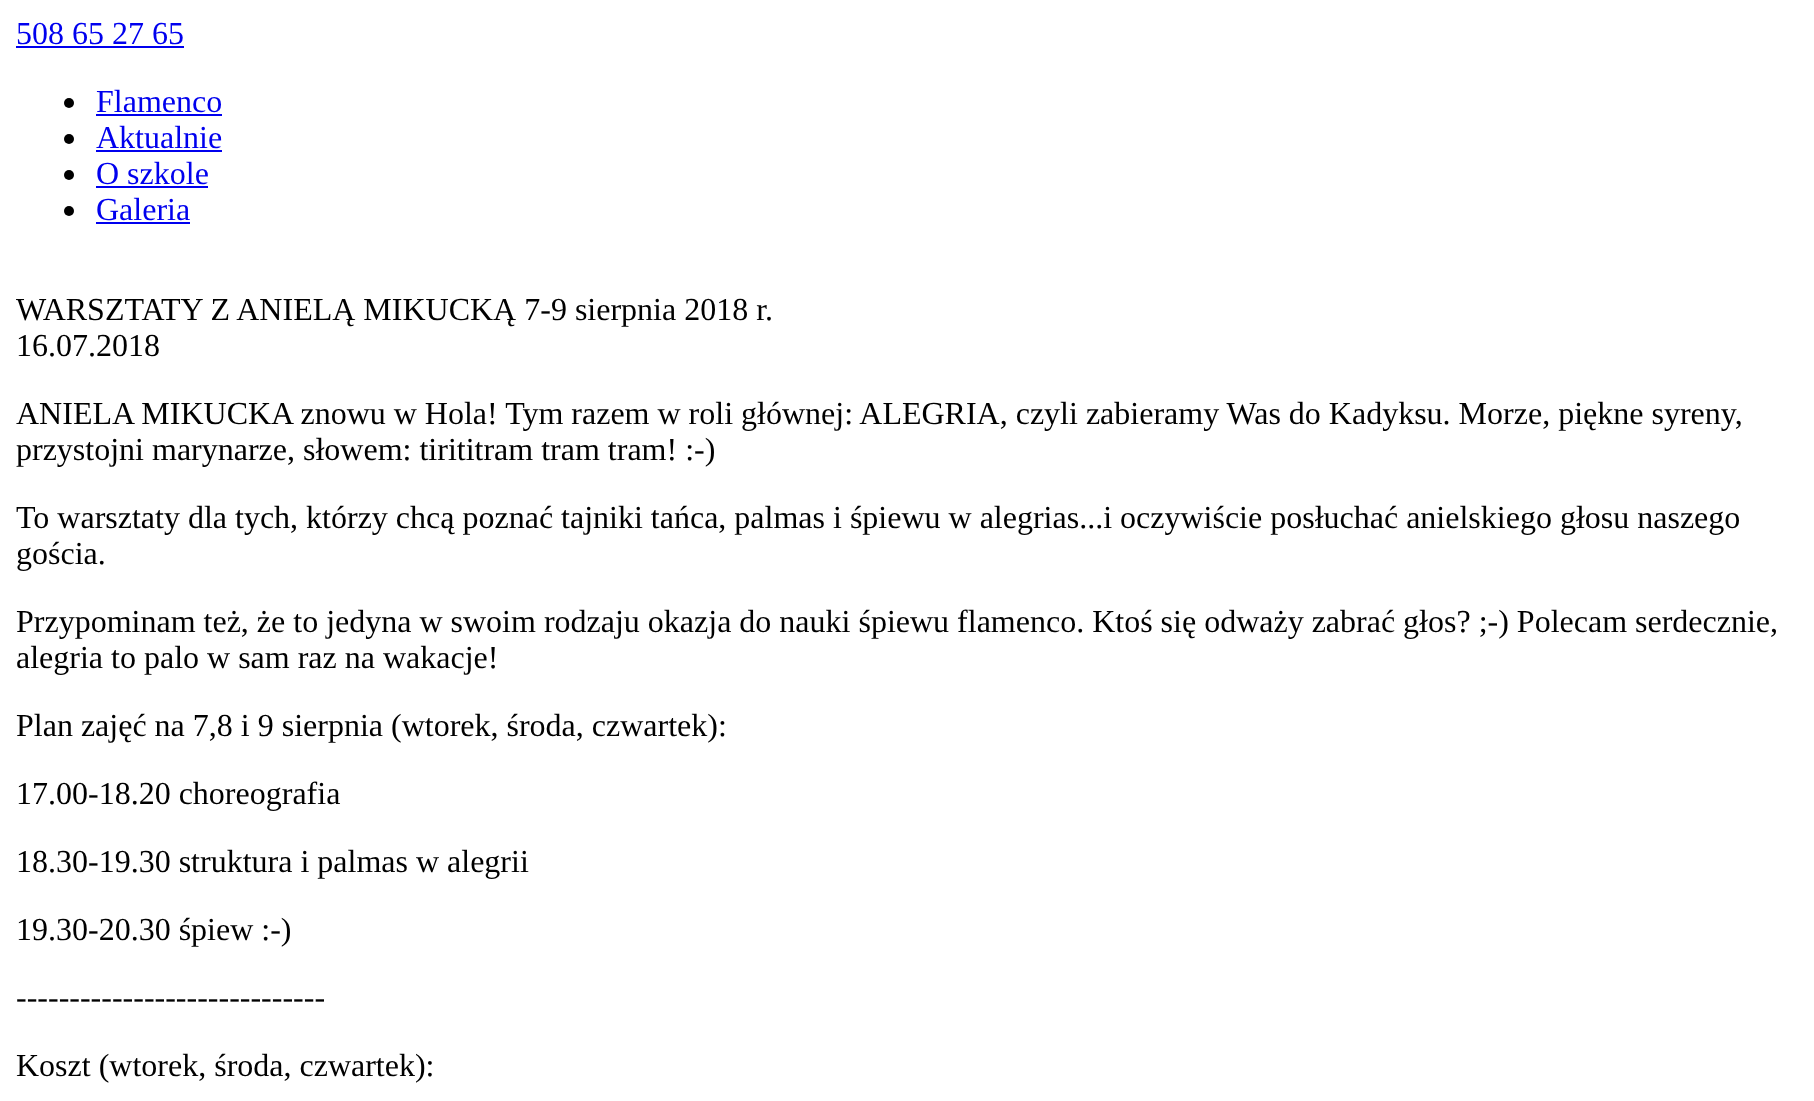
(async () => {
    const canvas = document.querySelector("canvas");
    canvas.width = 1814;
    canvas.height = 1101;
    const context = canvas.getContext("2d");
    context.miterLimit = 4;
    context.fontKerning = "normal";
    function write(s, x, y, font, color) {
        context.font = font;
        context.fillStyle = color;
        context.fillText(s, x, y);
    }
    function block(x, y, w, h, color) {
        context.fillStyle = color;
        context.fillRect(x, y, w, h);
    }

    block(0, 0, 1814, 1101, "rgb(255, 255, 255)");
    write("508 65 27 65", 16, 44, "32px Liberation Serif", "rgb(0, 0, 238)");
    block(16, 46, 168, 2, "rgb(0, 0, 238)");
    context.fillStyle = "rgb(0, 0, 0)";
    context.beginPath();
    context.arc(69, 103, 5, 0, Math.PI * 2);
    context.fill();
    write("Flamenco", 96, 112, "32px Liberation Serif", "rgb(0, 0, 238)");
    block(96, 114, 126, 2, "rgb(0, 0, 238)");
    context.fillStyle = "rgb(0, 0, 0)";
    context.beginPath();
    context.arc(69, 139, 5, 0, Math.PI * 2);
    context.fill();
    write("Aktualnie", 96, 148, "32px Liberation Serif", "rgb(0, 0, 238)");
    block(96, 150, 126, 2, "rgb(0, 0, 238)");
    context.fillStyle = "rgb(0, 0, 0)";
    context.beginPath();
    context.arc(69, 175, 5, 0, Math.PI * 2);
    context.fill();
    write("O szkole", 96, 184, "32px Liberation Serif", "rgb(0, 0, 238)");
    block(96, 186, 112, 2, "rgb(0, 0, 238)");
    context.fillStyle = "rgb(0, 0, 0)";
    context.beginPath();
    context.arc(69, 211, 5, 0, Math.PI * 2);
    context.fill();
    write("Galeria", 96, 220, "32px Liberation Serif", "rgb(0, 0, 238)");
    block(96, 222, 94, 2, "rgb(0, 0, 238)");
    write("WARSZTATY Z ANIELĄ MIKUCKĄ 7-9 sierpnia 2018 r.", 16, 320, "32px Liberation Serif", "rgb(0, 0, 0)");
    write("16.07.2018", 16, 356, "32px Liberation Serif", "rgb(0, 0, 0)");
    write("ANIELA MIKUCKA znowu w Hola! Tym razem w roli głównej: ALEGRIA, czyli zabieramy Was do Kadyksu. Morze, piękne syreny,", 16, 424, "32px Liberation Serif", "rgb(0, 0, 0)");
    write("przystojni marynarze, słowem: tirititram tram tram! :-)", 16, 460, "32px Liberation Serif", "rgb(0, 0, 0)");
    write("To warsztaty dla tych, którzy chcą poznać tajniki tańca, palmas i śpiewu w alegrias...i oczywiście posłuchać anielskiego głosu naszego", 16, 528, "32px Liberation Serif", "rgb(0, 0, 0)");
    write("gościa.", 16, 564, "32px Liberation Serif", "rgb(0, 0, 0)");
    write("Przypominam też, że to jedyna w swoim rodzaju okazja do nauki śpiewu flamenco. Ktoś się odważy zabrać głos? ;-) Polecam serdecznie,", 16, 632, "32px Liberation Serif", "rgb(0, 0, 0)");
    write("alegria to palo w sam raz na wakacje!", 16, 668, "32px Liberation Serif", "rgb(0, 0, 0)");
    write("Plan zajęć na 7,8 i 9 sierpnia (wtorek, środa, czwartek):", 16, 736, "32px Liberation Serif", "rgb(0, 0, 0)");
    write("17.00-18.20 choreografia", 16, 804, "32px Liberation Serif", "rgb(0, 0, 0)");
    write("18.30-19.30 struktura i palmas w alegrii", 16, 872, "32px Liberation Serif", "rgb(0, 0, 0)");
    write("19.30-20.30 śpiew :-)", 16, 940, "32px Liberation Serif", "rgb(0, 0, 0)");
    write("-----------------------------", 16, 1008, "32px Liberation Serif", "rgb(0, 0, 0)");
    write("Koszt (wtorek, środa, czwartek):", 16, 1076, "32px Liberation Serif", "rgb(0, 0, 0)");
})();
